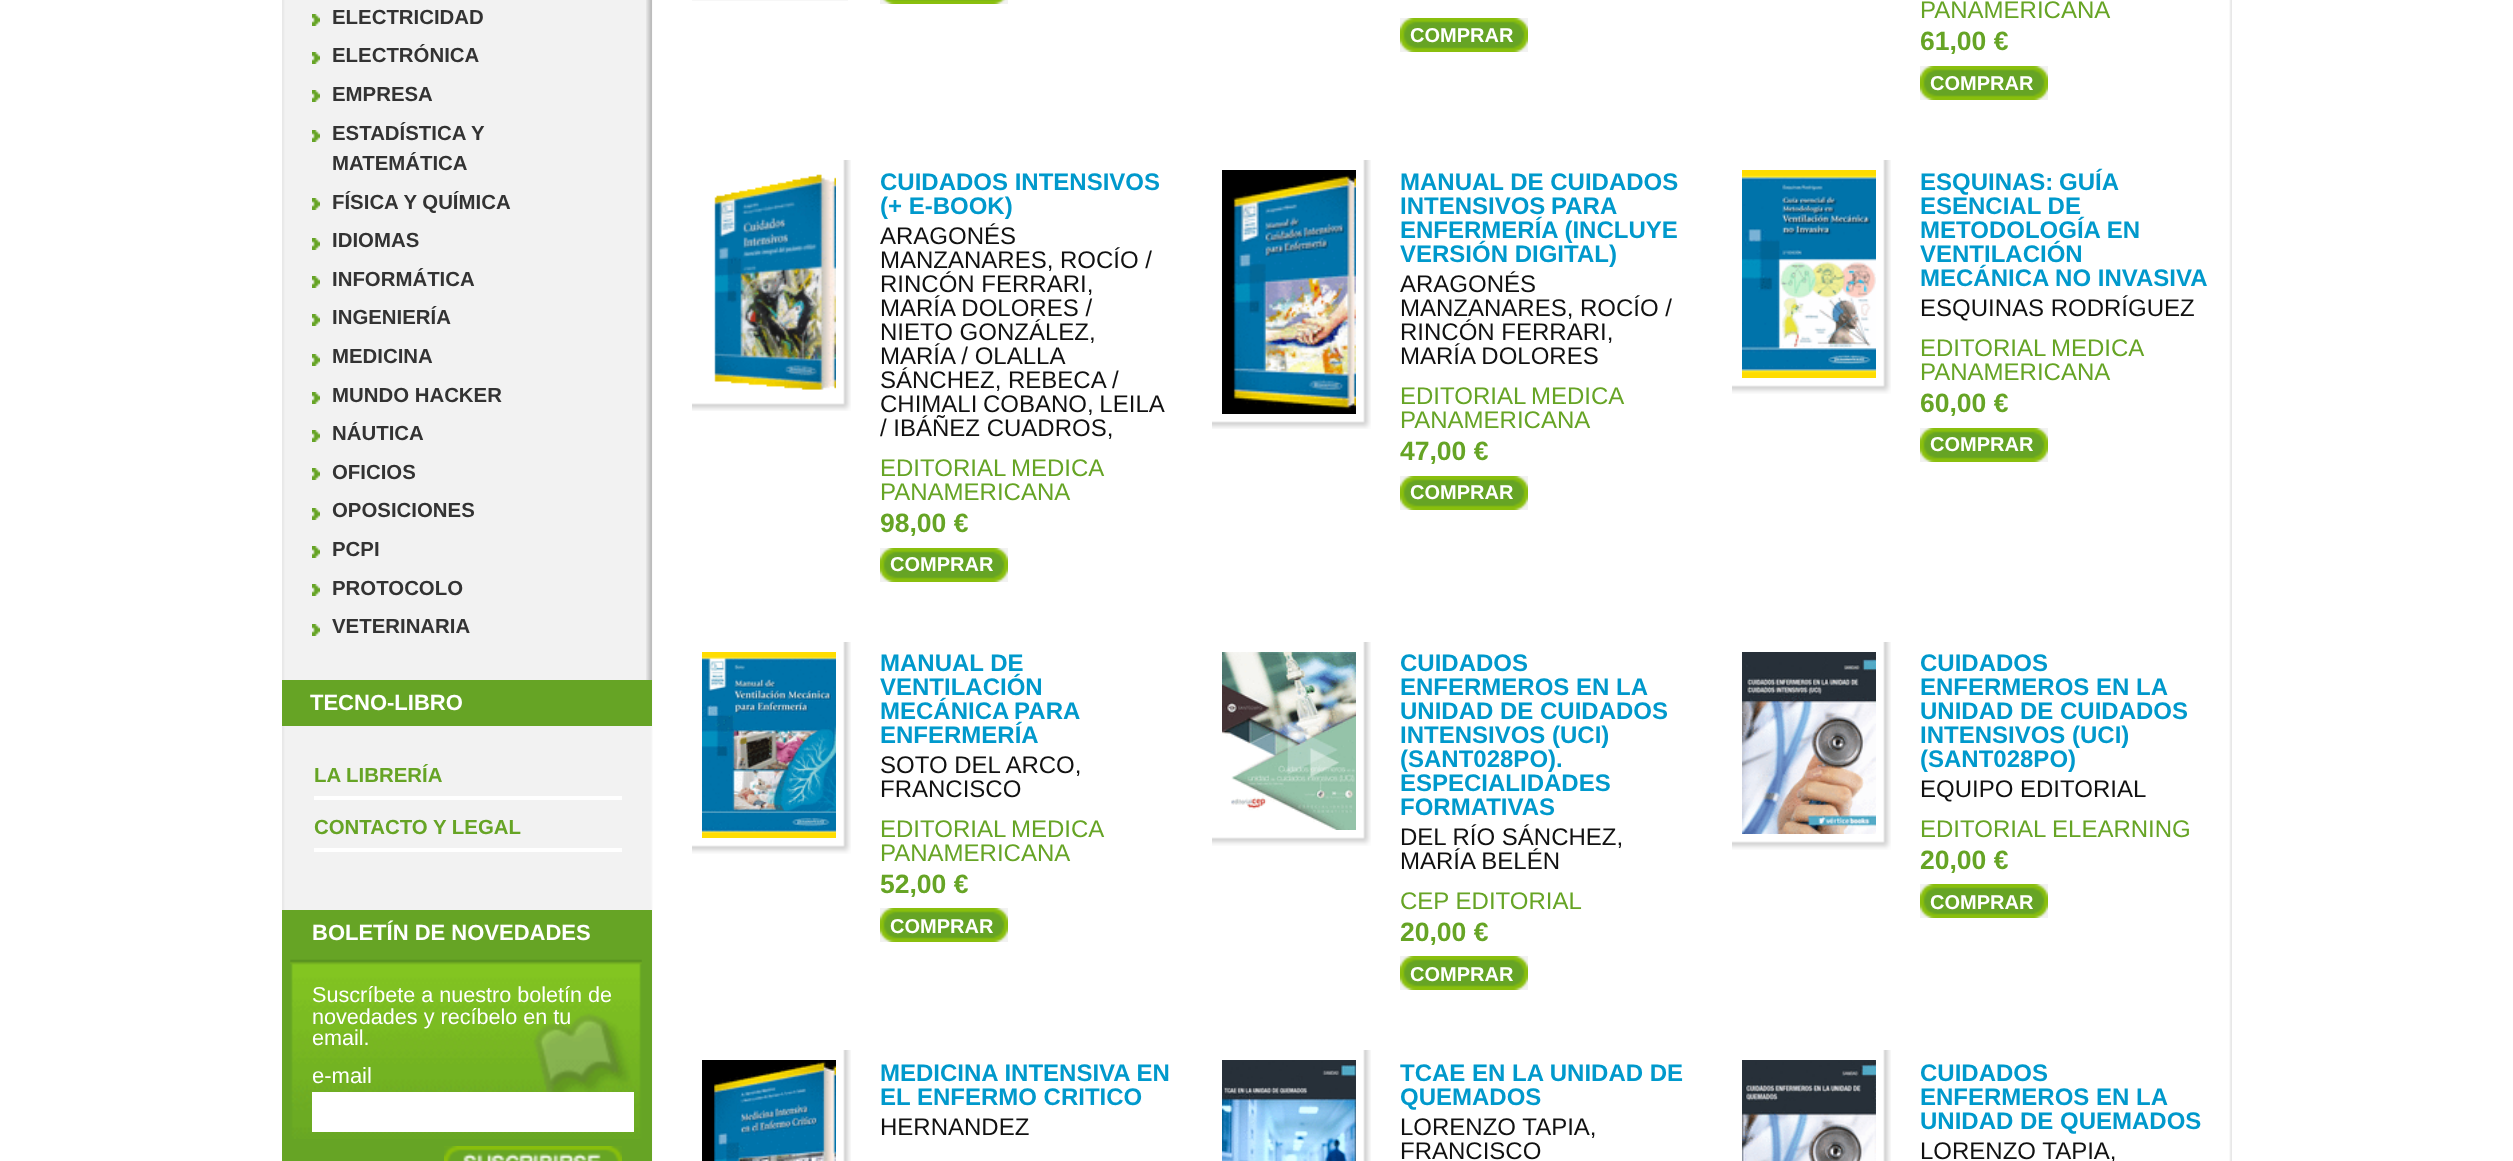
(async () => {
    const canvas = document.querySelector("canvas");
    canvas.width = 2513;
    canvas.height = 1161;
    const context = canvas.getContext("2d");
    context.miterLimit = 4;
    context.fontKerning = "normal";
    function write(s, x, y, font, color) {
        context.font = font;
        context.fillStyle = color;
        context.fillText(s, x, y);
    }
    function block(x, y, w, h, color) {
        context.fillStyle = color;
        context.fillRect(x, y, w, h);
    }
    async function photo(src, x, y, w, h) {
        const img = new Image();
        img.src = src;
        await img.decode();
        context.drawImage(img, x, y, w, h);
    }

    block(0, 0, 2513, 1161, "rgb(255, 255, 255)");
    await photo("media/1.png", 282, 0, 1950, 1161);
    await photo("media/2.png", 646, 0, 6, 680);
    await photo("media/3.png", 312, 14, 8, 12);
    write("ELECTRICIDAD", 332, 24, "bold 20.4px Liberation Sans", "rgb(51, 51, 51)");
    await photo("media/3.png", 312, 52, 8, 12);
    write("ELECTRÓNICA", 332, 62, "bold 20.4px Liberation Sans", "rgb(51, 51, 51)");
    await photo("media/3.png", 312, 90, 8, 12);
    write("EMPRESA", 332, 101, "bold 20.4px Liberation Sans", "rgb(51, 51, 51)");
    await photo("media/3.png", 312, 130, 8, 12);
    write("ESTADÍSTICA Y", 332, 140, "bold 20.4px Liberation Sans", "rgb(51, 51, 51)");
    write("MATEMÁTICA", 332, 170, "bold 20.4px Liberation Sans", "rgb(51, 51, 51)");
    await photo("media/3.png", 312, 198, 8, 12);
    write("FÍSICA Y QUÍMICA", 332, 209, "bold 20.4px Liberation Sans", "rgb(51, 51, 51)");
    await photo("media/3.png", 312, 238, 8, 12);
    write("IDIOMAS", 332, 247, "bold 20.4px Liberation Sans", "rgb(51, 51, 51)");
    await photo("media/3.png", 312, 276, 8, 12);
    write("INFORMÁTICA", 332, 286, "bold 20.4px Liberation Sans", "rgb(51, 51, 51)");
    await photo("media/3.png", 312, 314, 8, 12);
    write("INGENIERÍA", 332, 324, "bold 20.4px Liberation Sans", "rgb(51, 51, 51)");
    await photo("media/3.png", 312, 354, 8, 12);
    write("MEDICINA", 332, 363, "bold 20.4px Liberation Sans", "rgb(51, 51, 51)");
    await photo("media/3.png", 312, 392, 8, 12);
    write("MUNDO HACKER", 332, 402, "bold 20.4px Liberation Sans", "rgb(51, 51, 51)");
    await photo("media/3.png", 312, 430, 8, 12);
    write("NÁUTICA", 332, 440, "bold 20.4px Liberation Sans", "rgb(51, 51, 51)");
    await photo("media/3.png", 312, 468, 8, 12);
    write("OFICIOS", 332, 479, "bold 20.4px Liberation Sans", "rgb(51, 51, 51)");
    await photo("media/3.png", 312, 508, 8, 12);
    write("OPOSICIONES", 332, 517, "bold 20.4px Liberation Sans", "rgb(51, 51, 51)");
    await photo("media/3.png", 312, 546, 8, 12);
    write("PCPI", 332, 556, "bold 20.4px Liberation Sans", "rgb(51, 51, 51)");
    await photo("media/3.png", 312, 584, 8, 12);
    write("PROTOCOLO", 332, 595, "bold 20.4px Liberation Sans", "rgb(51, 51, 51)");
    await photo("media/3.png", 312, 624, 8, 12);
    write("VETERINARIA", 332, 633, "bold 20.4px Liberation Sans", "rgb(51, 51, 51)");
    block(282, 680, 370, 46, "rgb(102, 164, 37)");
    write("TECNO-LIBRO", 310, 710, "bold 22px Liberation Sans", "rgb(255, 255, 255)");
    block(314, 796, 308, 4, "rgb(255, 255, 255)");
    write("LA LIBRERÍA", 314, 782, "bold 20.4px Liberation Sans", "rgb(102, 164, 37)");
    block(314, 848, 308, 4, "rgb(255, 255, 255)");
    write("CONTACTO Y LEGAL", 314, 834, "bold 20.4px Liberation Sans", "rgb(102, 164, 37)");
    block(282, 910, 370, 251, "rgb(102, 164, 37)");
    await photo("media/4.png", 290, 959, 352, 180);
    write("BOLETÍN DE NOVEDADES", 312, 940, "bold 22px Liberation Sans", "rgb(255, 255, 255)");
    write("Suscríbete a nuestro boletín de", 312, 1002, "21.6px Liberation Sans", "rgb(255, 255, 255)");
    write("novedades y recíbelo en tu", 312, 1024, "21.6px Liberation Sans", "rgb(255, 255, 255)");
    write("email.", 312, 1045, "21.6px Liberation Sans", "rgb(255, 255, 255)");
    write("e-mail", 312, 1083, "22px Liberation Sans", "rgb(255, 255, 255)");
    block(312, 1092, 322, 40, "rgb(255, 255, 255)");
    await photo("media/5.png", 444, 1146, 178, 15);
    block(692, 0, 156, 1, "rgb(247, 247, 247)");
    await photo("media/6.png", 880, 0, 128, 4);
    await photo("media/7.png", 1400, 18, 128, 34);
    write("COMPRAR", 1410, 42, "bold 20px Liberation Sans", "rgb(255, 255, 255)");
    write("PANAMERICANA", 1920, 18, "24px Liberation Sans", "rgb(102, 164, 37)");
    write("61,00 €", 1920, 50, "bold 26.5px Liberation Sans", "rgb(102, 164, 37)");
    await photo("media/7.png", 1920, 66, 128, 34);
    write("COMPRAR", 1930, 90, "bold 20px Liberation Sans", "rgb(255, 255, 255)");
    await photo("media/8.png", 692, 160, 159, 251);
    await photo("media/9.png", 714, 174, 122, 216);
    write("CUIDADOS INTENSIVOS", 880, 190, "bold 24px Liberation Sans", "rgb(0, 153, 204)");
    write("(+ E-BOOK)", 880, 214, "bold 24px Liberation Sans", "rgb(0, 153, 204)");
    write("ARAGONÉS", 880, 244, "24px Liberation Sans", "rgb(17, 17, 17)");
    write("MANZANARES, ROCÍO /", 880, 268, "24px Liberation Sans", "rgb(17, 17, 17)");
    write("RINCÓN FERRARI,", 880, 292, "24px Liberation Sans", "rgb(17, 17, 17)");
    write("MARÍA DOLORES /", 880, 316, "24px Liberation Sans", "rgb(17, 17, 17)");
    write("NIETO GONZÁLEZ,", 880, 340, "24px Liberation Sans", "rgb(17, 17, 17)");
    write("MARÍA / OLALLA", 880, 364, "24px Liberation Sans", "rgb(17, 17, 17)");
    write("SÁNCHEZ, REBECA /", 880, 388, "24px Liberation Sans", "rgb(17, 17, 17)");
    context.wordSpacing = "-1px";
    write("CHIMALI COBANO, LEILA", 880, 412, "24px Liberation Sans", "rgb(17, 17, 17)");
    context.wordSpacing = "0px";
    write("/ IBÁÑEZ CUADROS,", 880, 436, "24px Liberation Sans", "rgb(17, 17, 17)");
    context.wordSpacing = "-1px";
    write("EDITORIAL MEDICA", 880, 476, "24px Liberation Sans", "rgb(102, 164, 37)");
    context.wordSpacing = "0px";
    write("PANAMERICANA", 880, 500, "24px Liberation Sans", "rgb(102, 164, 37)");
    write("98,00 €", 880, 532, "bold 26.5px Liberation Sans", "rgb(102, 164, 37)");
    await photo("media/7.png", 880, 548, 128, 34);
    write("COMPRAR", 890, 571, "bold 20px Liberation Sans", "rgb(255, 255, 255)");
    await photo("media/10.png", 1212, 160, 159, 269);
    await photo("media/11.png", 1222, 170, 134, 244);
    write("MANUAL DE CUIDADOS", 1400, 190, "bold 24px Liberation Sans", "rgb(0, 153, 204)");
    context.wordSpacing = "-1px";
    write("INTENSIVOS PARA", 1400, 214, "bold 24px Liberation Sans", "rgb(0, 153, 204)");
    context.wordSpacing = "0px";
    write("ENFERMERÍA (INCLUYE", 1400, 238, "bold 24px Liberation Sans", "rgb(0, 153, 204)");
    write("VERSIÓN DIGITAL)", 1400, 262, "bold 24px Liberation Sans", "rgb(0, 153, 204)");
    write("ARAGONÉS", 1400, 292, "24px Liberation Sans", "rgb(17, 17, 17)");
    write("MANZANARES, ROCÍO /", 1400, 316, "24px Liberation Sans", "rgb(17, 17, 17)");
    write("RINCÓN FERRARI,", 1400, 340, "24px Liberation Sans", "rgb(17, 17, 17)");
    write("MARÍA DOLORES", 1400, 364, "24px Liberation Sans", "rgb(17, 17, 17)");
    context.wordSpacing = "-1px";
    write("EDITORIAL MEDICA", 1400, 404, "24px Liberation Sans", "rgb(102, 164, 37)");
    context.wordSpacing = "0px";
    write("PANAMERICANA", 1400, 428, "24px Liberation Sans", "rgb(102, 164, 37)");
    write("47,00 €", 1400, 460, "bold 26.5px Liberation Sans", "rgb(102, 164, 37)");
    await photo("media/7.png", 1400, 476, 128, 34);
    write("COMPRAR", 1410, 499, "bold 20px Liberation Sans", "rgb(255, 255, 255)");
    await photo("media/12.png", 1732, 160, 159, 234);
    await photo("media/13.png", 1742, 170, 134, 208);
    context.wordSpacing = "-1px";
    write("ESQUINAS: GUÍA", 1920, 190, "bold 24px Liberation Sans", "rgb(0, 153, 204)");
    context.wordSpacing = "0px";
    write("ESENCIAL DE", 1920, 214, "bold 24px Liberation Sans", "rgb(0, 153, 204)");
    write("METODOLOGÍA EN", 1920, 238, "bold 24px Liberation Sans", "rgb(0, 153, 204)");
    write("VENTILACIÓN", 1920, 262, "bold 24px Liberation Sans", "rgb(0, 153, 204)");
    write("MECÁNICA NO INVASIVA", 1920, 286, "bold 24px Liberation Sans", "rgb(0, 153, 204)");
    write("ESQUINAS RODRÍGUEZ", 1920, 316, "24px Liberation Sans", "rgb(17, 17, 17)");
    context.wordSpacing = "-1px";
    write("EDITORIAL MEDICA", 1920, 356, "24px Liberation Sans", "rgb(102, 164, 37)");
    context.wordSpacing = "0px";
    write("PANAMERICANA", 1920, 380, "24px Liberation Sans", "rgb(102, 164, 37)");
    write("60,00 €", 1920, 412, "bold 26.5px Liberation Sans", "rgb(102, 164, 37)");
    await photo("media/7.png", 1920, 428, 128, 34);
    write("COMPRAR", 1930, 451, "bold 20px Liberation Sans", "rgb(255, 255, 255)");
    await photo("media/14.png", 692, 642, 159, 212);
    await photo("media/15.png", 702, 652, 134, 186);
    write("MANUAL DE", 880, 671, "bold 24px Liberation Sans", "rgb(0, 153, 204)");
    write("VENTILACIÓN", 880, 695, "bold 24px Liberation Sans", "rgb(0, 153, 204)");
    context.wordSpacing = "-1px";
    write("MECÁNICA PARA", 880, 719, "bold 24px Liberation Sans", "rgb(0, 153, 204)");
    context.wordSpacing = "0px";
    write("ENFERMERÍA", 880, 743, "bold 24px Liberation Sans", "rgb(0, 153, 204)");
    write("SOTO DEL ARCO,", 880, 773, "24px Liberation Sans", "rgb(17, 17, 17)");
    write("FRANCISCO", 880, 797, "24px Liberation Sans", "rgb(17, 17, 17)");
    context.wordSpacing = "-1px";
    write("EDITORIAL MEDICA", 880, 837, "24px Liberation Sans", "rgb(102, 164, 37)");
    context.wordSpacing = "0px";
    write("PANAMERICANA", 880, 861, "24px Liberation Sans", "rgb(102, 164, 37)");
    write("52,00 €", 880, 893, "bold 26.5px Liberation Sans", "rgb(102, 164, 37)");
    await photo("media/7.png", 880, 908, 128, 34);
    write("COMPRAR", 890, 933, "bold 20px Liberation Sans", "rgb(255, 255, 255)");
    await photo("media/16.png", 1212, 642, 159, 204);
    await photo("media/17.png", 1222, 652, 134, 178);
    write("CUIDADOS", 1400, 671, "bold 24px Liberation Sans", "rgb(0, 153, 204)");
    write("ENFERMEROS EN LA", 1400, 695, "bold 24px Liberation Sans", "rgb(0, 153, 204)");
    write("UNIDAD DE CUIDADOS", 1400, 719, "bold 24px Liberation Sans", "rgb(0, 153, 204)");
    write("INTENSIVOS (UCI)", 1400, 743, "bold 24px Liberation Sans", "rgb(0, 153, 204)");
    write("(SANT028PO).", 1400, 767, "bold 24px Liberation Sans", "rgb(0, 153, 204)");
    write("ESPECIALIDADES", 1400, 791, "bold 24px Liberation Sans", "rgb(0, 153, 204)");
    write("FORMATIVAS", 1400, 815, "bold 24px Liberation Sans", "rgb(0, 153, 204)");
    write("DEL RÍO SÁNCHEZ,", 1400, 845, "24px Liberation Sans", "rgb(17, 17, 17)");
    write("MARÍA BELÉN", 1400, 869, "24px Liberation Sans", "rgb(17, 17, 17)");
    write("CEP EDITORIAL", 1400, 909, "24px Liberation Sans", "rgb(102, 164, 37)");
    write("20,00 €", 1400, 941, "bold 26.5px Liberation Sans", "rgb(102, 164, 37)");
    await photo("media/7.png", 1400, 956, 128, 34);
    write("COMPRAR", 1410, 981, "bold 20px Liberation Sans", "rgb(255, 255, 255)");
    await photo("media/18.png", 1732, 642, 159, 208);
    await photo("media/19.png", 1742, 652, 134, 182);
    write("CUIDADOS", 1920, 671, "bold 24px Liberation Sans", "rgb(0, 153, 204)");
    write("ENFERMEROS EN LA", 1920, 695, "bold 24px Liberation Sans", "rgb(0, 153, 204)");
    write("UNIDAD DE CUIDADOS", 1920, 719, "bold 24px Liberation Sans", "rgb(0, 153, 204)");
    write("INTENSIVOS (UCI)", 1920, 743, "bold 24px Liberation Sans", "rgb(0, 153, 204)");
    write("(SANT028PO)", 1920, 767, "bold 24px Liberation Sans", "rgb(0, 153, 204)");
    write("EQUIPO EDITORIAL", 1920, 797, "24px Liberation Sans", "rgb(17, 17, 17)");
    write("EDITORIAL ELEARNING", 1920, 837, "24px Liberation Sans", "rgb(102, 164, 37)");
    write("20,00 €", 1920, 869, "bold 26.5px Liberation Sans", "rgb(102, 164, 37)");
    await photo("media/7.png", 1920, 884, 128, 34);
    write("COMPRAR", 1930, 909, "bold 20px Liberation Sans", "rgb(255, 255, 255)");
    await photo("media/20.png", 843, 1050, 8, 111);
    await photo("media/21.png", 702, 1060, 134, 101);
    write("MEDICINA INTENSIVA EN", 880, 1081, "bold 24px Liberation Sans", "rgb(0, 153, 204)");
    write("EL ENFERMO CRITICO", 880, 1105, "bold 24px Liberation Sans", "rgb(0, 153, 204)");
    write("HERNANDEZ", 880, 1135, "24px Liberation Sans", "rgb(17, 17, 17)");
    await photo("media/20.png", 1363, 1050, 8, 111);
    await photo("media/22.png", 1222, 1060, 134, 101);
    write("TCAE EN LA UNIDAD DE", 1400, 1081, "bold 24px Liberation Sans", "rgb(0, 153, 204)");
    write("QUEMADOS", 1400, 1105, "bold 24px Liberation Sans", "rgb(0, 153, 204)");
    write("LORENZO TAPIA,", 1400, 1135, "24px Liberation Sans", "rgb(17, 17, 17)");
    write("FRANCISCO", 1400, 1159, "24px Liberation Sans", "rgb(17, 17, 17)");
    await photo("media/20.png", 1883, 1050, 8, 111);
    await photo("media/23.png", 1742, 1060, 134, 101);
    write("CUIDADOS", 1920, 1081, "bold 24px Liberation Sans", "rgb(0, 153, 204)");
    write("ENFERMEROS EN LA", 1920, 1105, "bold 24px Liberation Sans", "rgb(0, 153, 204)");
    write("UNIDAD DE QUEMADOS", 1920, 1129, "bold 24px Liberation Sans", "rgb(0, 153, 204)");
    write("LORENZO TAPIA,", 1920, 1159, "24px Liberation Sans", "rgb(17, 17, 17)");
})();
